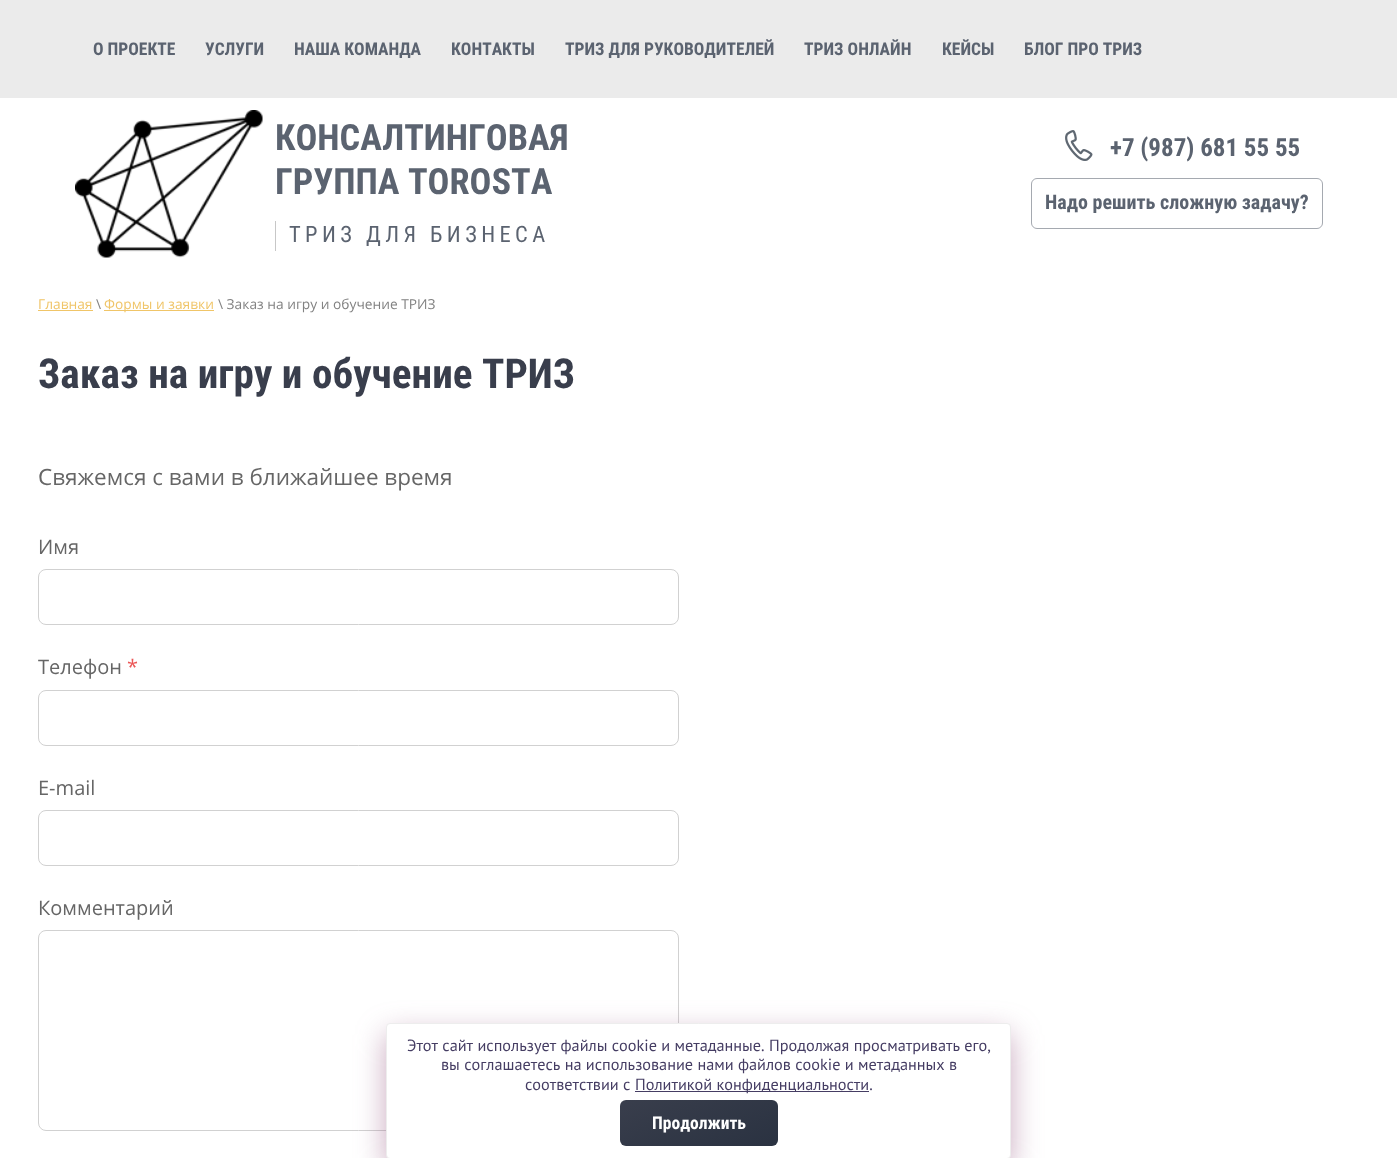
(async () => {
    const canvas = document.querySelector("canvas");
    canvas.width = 1397;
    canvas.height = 1158;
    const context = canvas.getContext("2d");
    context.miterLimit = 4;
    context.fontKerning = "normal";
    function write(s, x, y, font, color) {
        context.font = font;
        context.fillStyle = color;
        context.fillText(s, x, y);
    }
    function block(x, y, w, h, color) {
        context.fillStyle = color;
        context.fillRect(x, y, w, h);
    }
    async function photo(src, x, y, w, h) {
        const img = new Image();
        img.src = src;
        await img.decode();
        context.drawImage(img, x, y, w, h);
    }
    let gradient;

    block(0, 0, 1397, 1158, "rgb(255, 255, 255)");
    block(0, 0, 1397, 98, "rgb(235, 235, 235)");
    write("О ПРОЕКТЕ", 93, 55, "bold 17.5px Roboto Condensed", "rgb(91, 99, 112)");
    write("УСЛУГИ", 205, 55, "bold 17.5px Roboto Condensed", "rgb(91, 99, 112)");
    write("НАША КОМАНДА", 294, 55, "bold 17.5px Roboto Condensed", "rgb(91, 99, 112)");
    write("КОНТАКТЫ", 451, 55, "bold 17.5px Roboto Condensed", "rgb(91, 99, 112)");
    write("ТРИЗ ДЛЯ РУКОВОДИТЕЛЕЙ", 565, 55, "bold 17.5px Roboto Condensed", "rgb(91, 99, 112)");
    write("ТРИЗ ОНЛАЙН", 804, 55, "bold 17.5px Roboto Condensed", "rgb(91, 99, 112)");
    write("КЕЙСЫ", 942, 55, "bold 17.5px Roboto Condensed", "rgb(91, 99, 112)");
    write("БЛОГ ПРО ТРИЗ", 1024, 55, "bold 17.5px Roboto Condensed", "rgb(91, 99, 112)");
    await photo("media/1.png", 75, 110, 188, 148);
    write("КОНСАЛТИНГОВАЯ", 275, 150, "bold 36.25px Roboto Condensed", "rgb(91, 99, 112)");
    write("ГРУППА TOROSTA", 275, 194, "bold 36.25px Roboto Condensed", "rgb(91, 99, 112)");
    block(275, 221, 1, 30, "rgb(199, 199, 199)");
    context.letterSpacing = "4.4px";
    write("ТРИЗ ДЛЯ БИЗНЕСА", 289, 242, "22.5px Roboto Condensed", "rgb(91, 99, 112)");
    await photo("media/2.png", 1065, 130, 28, 31);
    context.letterSpacing = "0px";
    write("+7 (987) 681 55 55", 1110, 156, "bold 25px Roboto Condensed", "rgb(91, 99, 112)");
    context.beginPath();
    context.roundRect(1031.5, 178.5, 291, 50, 5.5);
    context.strokeStyle = "rgb(165, 169, 176)";
    context.stroke();
    write("Надо решить сложную задачу?", 1045, 209, "bold 20px Roboto Condensed", "rgb(91, 99, 112)");
    write("Главная", 38, 309, "13.75px Open Sans", "rgb(240, 197, 104)");
    block(38, 310, 55, 1, "rgb(240, 197, 104)");
    write("\\", 96, 309, "13.75px Open Sans", "rgb(130, 130, 130)");
    block(104, 310, 110, 1, "rgb(240, 197, 104)");
    write("Формы и заявки", 104, 309, "13.75px Open Sans", "rgb(240, 197, 104)");
    write("\\ Заказ на игру и обучение ТРИЗ", 218, 309, "13.75px Open Sans", "rgb(130, 130, 130)");
    write("Заказ на игру и обучение ТРИЗ", 38, 388, "bold 41.25px Roboto Condensed", "rgb(57, 62, 76)");
    write("Свяжемся с вами в ближайшее время", 38, 485, "22.5px Open Sans", "rgb(102, 102, 102)");
    write("Имя", 38, 554, "20px Open Sans", "rgb(102, 102, 102)");
    context.beginPath();
    context.roundRect(38.5, 569.5, 640, 55, 7.5);
    context.strokeStyle = "rgb(209, 209, 209)";
    context.stroke();
    write("Телефон", 38, 674, "20px Open Sans", "rgb(102, 102, 102)");
    write("*", 127, 674, "20px Open Sans", "rgb(235, 87, 87)");
    context.beginPath();
    context.roundRect(38.5, 690.5, 640, 55, 7.5);
    context.stroke();
    write("E-mail", 38, 795, "20px Open Sans", "rgb(102, 102, 102)");
    context.beginPath();
    context.roundRect(38.5, 810.5, 640, 55, 7.5);
    context.stroke();
    write("Комментарий", 38, 915, "20px Open Sans", "rgb(102, 102, 102)");
    context.beginPath();
    context.roundRect(38.5, 930.5, 640, 200, 7.5);
    context.stroke();
    context.fillStyle = "rgba(145, 81, 124, 0.49)";
    context.filter = "blur(15px)";
    context.beginPath();
    context.roundRect(386, 1034, 625, 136, 4);
    context.fill();
    context.filter = "none";
    context.fillStyle = "rgb(255, 255, 255)";
    context.beginPath();
    context.roundRect(386.5, 1023.5, 624, 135, 3.5);
    context.fill();
    context.strokeStyle = "rgb(237, 237, 237)";
    context.stroke();
    write("Этот сайт использует файлы cookie и метаданные. Продолжая просматривать его,", 407, 1051, "16.25px PT Sans", "rgb(69, 61, 99)");
    write("вы соглашаетесь на использование нами файлов cookie и метаданных в", 441, 1070, "16.25px PT Sans", "rgb(69, 61, 99)");
    write("соответствии с", 525, 1090, "16.25px PT Sans", "rgb(69, 61, 99)");
    block(635, 1091, 234, 1, "rgb(69, 61, 99)");
    write("Политикой конфиденциальности.", 635, 1090, "16.25px PT Sans", "rgb(69, 61, 99)");
    gradient = context.createLinearGradient(720, 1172, 677, 1075);
    gradient.addColorStop(0, "rgb(42, 50, 65)");
    gradient.addColorStop(1, "rgb(57, 62, 76)");
    context.fillStyle = gradient;
    context.beginPath();
    context.roundRect(620, 1100, 158, 46, 6);
    context.fill();
    write("Продолжить", 652, 1129, "bold 17.5px Roboto Condensed", "rgb(255, 255, 255)");
})();
